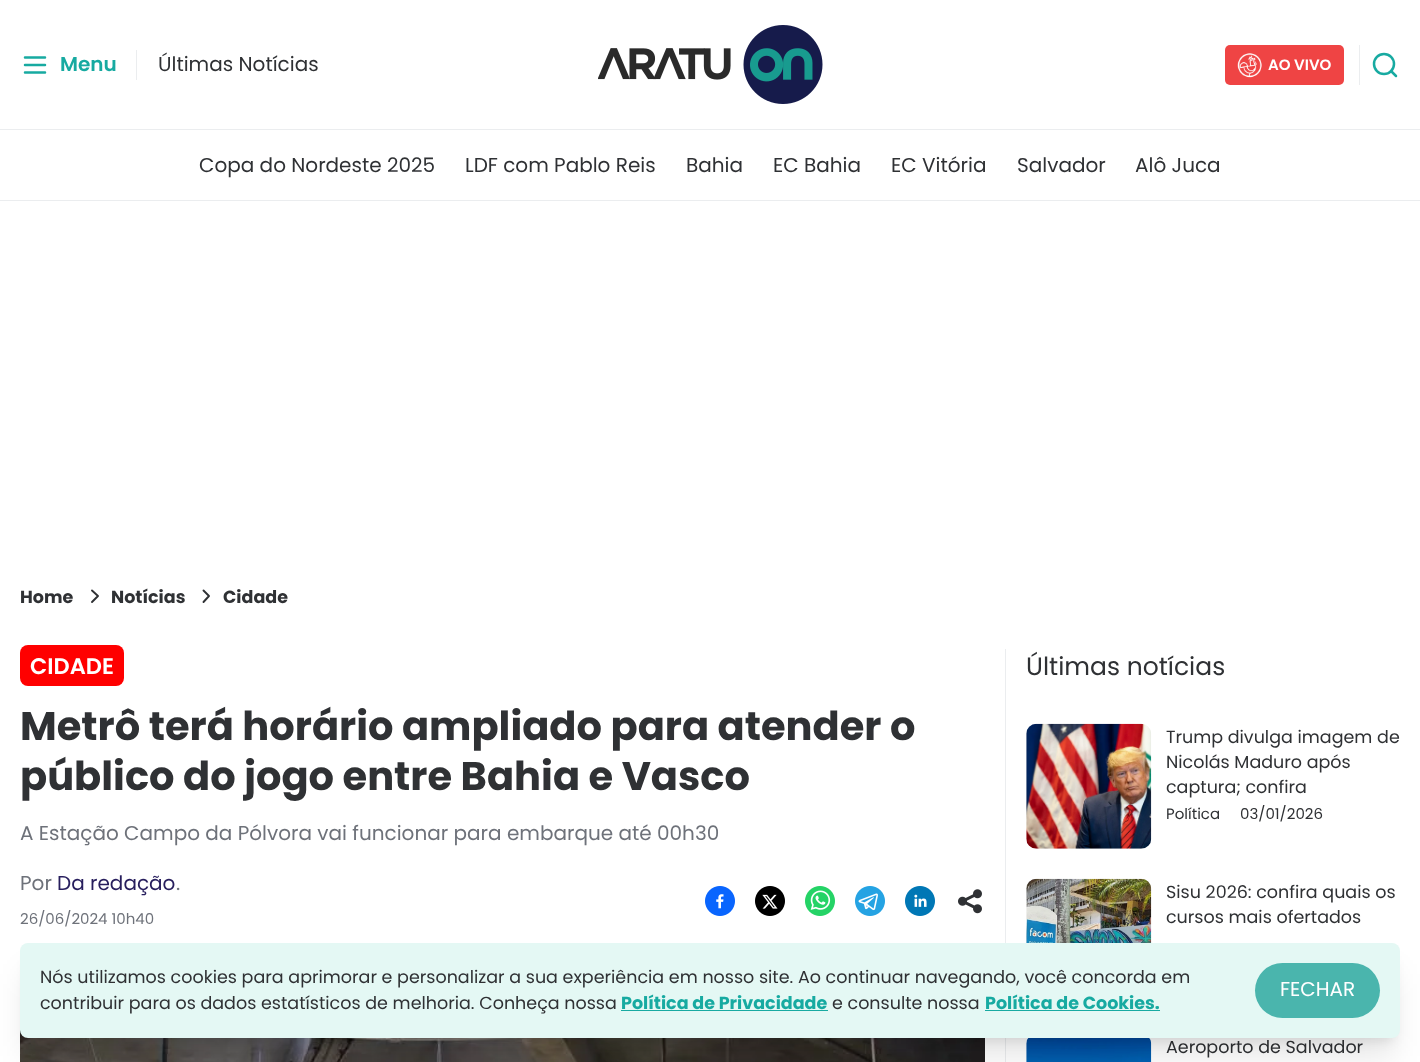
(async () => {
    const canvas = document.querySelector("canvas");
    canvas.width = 1420;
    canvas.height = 1062;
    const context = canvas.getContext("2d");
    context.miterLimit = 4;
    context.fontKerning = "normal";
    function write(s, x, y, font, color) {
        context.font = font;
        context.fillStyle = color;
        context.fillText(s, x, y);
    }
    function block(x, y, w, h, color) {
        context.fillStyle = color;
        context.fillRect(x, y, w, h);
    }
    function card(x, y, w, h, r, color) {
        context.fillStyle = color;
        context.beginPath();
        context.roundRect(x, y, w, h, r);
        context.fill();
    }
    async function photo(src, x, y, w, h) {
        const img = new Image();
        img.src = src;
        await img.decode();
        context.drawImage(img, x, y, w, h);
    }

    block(0, 0, 1420, 1062, "rgb(255, 255, 255)");
    context.beginPath();
    context.moveTo(25, 65);
    context.lineTo(45, 65);
    context.moveTo(25, 57.5);
    context.lineTo(45, 57.5);
    context.moveTo(25, 72.5);
    context.lineTo(45, 72.5);
    context.strokeStyle = "rgb(23, 170, 161)";
    context.lineWidth = 2.5;
    context.lineCap = "round";
    context.lineJoin = "round";
    context.stroke();
    write("Menu", 60, 71, "600 20px Poppins", "rgb(23, 170, 161)");
    block(136, 50, 1, 30, "rgb(235, 237, 239)");
    write("Últimas Notícias", 158, 71, "20px Poppins", "rgb(47, 49, 52)");
    await photo("media/1.png", 598, 25, 225, 79);
    block(1359, 45, 1, 40, "rgb(235, 237, 239)");
    card(1225, 45, 119, 40, 5, "rgb(239, 68, 68)");
    await photo("media/2.png", 1237, 53, 25, 25);
    write("AO VIVO", 1268, 70, "600 15px Poppins", "rgb(255, 255, 255)");
    context.beginPath();
    context.arc(1384, 64, 10, 0, Math.PI * 2);
    context.stroke();
    context.beginPath();
    context.moveTo(1396, 76);
    context.lineTo(1391, 71);
    context.stroke();
    block(0, 129, 1420, 1, "rgb(235, 237, 239)");
    block(0, 200, 1420, 1, "rgb(235, 237, 239)");
    write("Copa do Nordeste 2025", 199, 172, "20px Poppins", "rgb(47, 49, 52)");
    write("LDF com Pablo Reis", 465, 172, "20px Poppins", "rgb(47, 49, 52)");
    write("Bahia", 686, 172, "20px Poppins", "rgb(47, 49, 52)");
    write("EC Bahia", 773, 172, "20px Poppins", "rgb(47, 49, 52)");
    write("EC Vitória", 891, 172, "20px Poppins", "rgb(47, 49, 52)");
    write("Salvador", 1017, 172, "20px Poppins", "rgb(47, 49, 52)");
    write("Alô Juca", 1135, 172, "20px Poppins", "rgb(47, 49, 52)");
    write("Home", 20, 603, "bold 17.5px Poppins", "rgb(47, 49, 52)");
    context.beginPath();
    context.moveTo(92, 602);
    context.lineTo(98, 596);
    context.lineTo(92, 590.5);
    context.strokeStyle = "rgb(47, 49, 52)";
    context.lineWidth = 1.9;
    context.stroke();
    write("Notícias", 111, 603, "bold 17.5px Poppins", "rgb(47, 49, 52)");
    context.beginPath();
    context.moveTo(203.5, 602);
    context.lineTo(209, 596);
    context.lineTo(203.5, 590.5);
    context.stroke();
    write("Cidade", 223, 603, "bold 17.5px Poppins", "rgb(47, 49, 52)");
    card(20, 645, 104, 41, 8, "rgb(255, 0, 0)");
    write("CIDADE", 30, 674, "600 22.5px Poppins", "rgb(255, 255, 255)");
    write("Metrô terá horário ampliado para atender o", 20, 740, "bold 40px Poppins", "rgb(47, 49, 52)");
    write("público do jogo entre Bahia e Vasco", 20, 790, "bold 40px Poppins", "rgb(47, 49, 52)");
    write("A Estação Campo da Pólvora vai funcionar para embarque até 00h30", 20, 840, "20px Poppins", "rgb(110, 114, 122)");
    write("Por", 20, 890, "20px Poppins", "rgb(110, 114, 122)");
    write("Da redação", 57, 890, "20px Poppins", "rgb(39, 30, 93)");
    write(".", 176, 890, "20px Poppins", "rgb(110, 114, 122)");
    write("26/06/2024 10h40", 20, 924, "15px Poppins", "rgb(110, 114, 122)");
    await photo("media/3.png", 705, 886, 30, 30);
    await photo("media/4.png", 755, 886, 30, 30);
    await photo("media/5.png", 805, 886, 30, 30);
    await photo("media/6.png", 855, 886, 30, 30);
    await photo("media/7.png", 905, 886, 30, 30);
    await photo("media/8.png", 958, 889, 24, 25);
    await photo("media/9.png", 20, 1030, 965, 32);
    block(1005, 649, 1, 413, "rgb(235, 237, 239)");
    write("Últimas notícias", 1026, 675, "25px Poppins", "rgb(47, 49, 52)");
    await photo("media/10.png", 1026, 723, 126, 126);
    write("Trump divulga imagem de", 1166, 743, "17.5px Poppins", "rgb(47, 49, 52)");
    write("Nicolás Maduro após", 1166, 768, "17.5px Poppins", "rgb(47, 49, 52)");
    write("captura; confira", 1166, 793, "17.5px Poppins", "rgb(47, 49, 52)");
    write("Política", 1166, 819, "15px Poppins", "rgb(47, 49, 52)");
    write("03/01/2026", 1240, 819, "15px Poppins", "rgb(47, 49, 52)");
    await photo("media/11.png", 1026, 878, 126, 65);
    write("Sisu 2026: confira quais os", 1166, 898, "17.5px Poppins", "rgb(47, 49, 52)");
    write("cursos mais ofertados", 1166, 923, "17.5px Poppins", "rgb(47, 49, 52)");
    await photo("media/12.png", 1026, 1038, 126, 24);
    write("Aeroporto de Salvador", 1166, 1053, "17.5px Poppins", "rgb(47, 49, 52)");
    context.fillStyle = "rgba(0, 0, 0, 0.1)";
    context.filter = "blur(6px)";
    context.beginPath();
    context.rect(28, 960, 1365, 80);
    context.fill();
    context.filter = "none";
    context.filter = "blur(15.5px)";
    context.beginPath();
    context.roundRect(26, 974, 1368, 82, 1);
    context.fill();
    context.filter = "none";
    card(20, 943, 1380, 95, 8, "rgb(228, 248, 244)");
    write("Nós utilizamos cookies para aprimorar e personalizar a sua experiência em nosso site. Ao continuar navegando, você concorda em", 40, 983, "17.5px Poppins", "rgb(47, 49, 52)");
    write("contribuir para os dados estatísticos de melhoria. Conheça nossa", 40, 1009, "17.5px Poppins", "rgb(47, 49, 52)");
    write("Política de Privacidade", 621, 1009, "bold 17.5px Poppins", "rgb(23, 170, 161)");
    block(621, 1010, 207, 1, "rgb(23, 170, 161)");
    write("e consulte nossa", 832, 1009, "17.5px Poppins", "rgb(47, 49, 52)");
    write("Política de Cookies.", 985, 1009, "bold 17.5px Poppins", "rgb(23, 170, 161)");
    block(985, 1010, 175, 1, "rgb(23, 170, 161)");
    card(1255, 963, 125, 55, 27.5, "rgb(74, 181, 173)");
    write("FECHAR", 1280, 996, "20px Poppins", "rgb(255, 255, 255)");
})();
